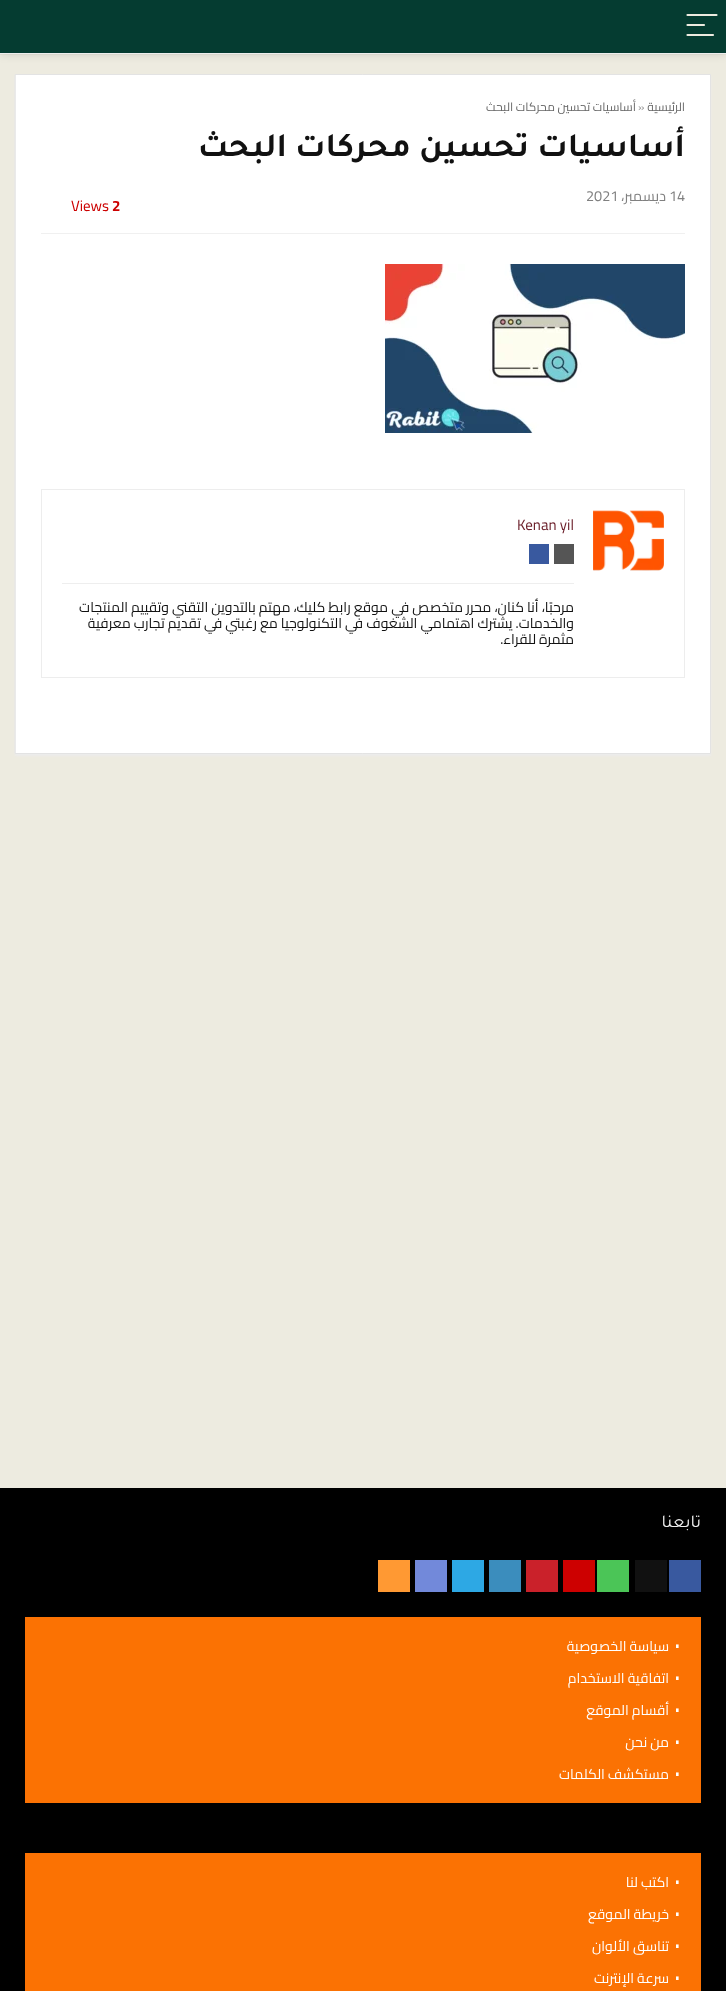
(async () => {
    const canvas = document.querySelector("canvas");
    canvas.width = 726;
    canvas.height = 1991;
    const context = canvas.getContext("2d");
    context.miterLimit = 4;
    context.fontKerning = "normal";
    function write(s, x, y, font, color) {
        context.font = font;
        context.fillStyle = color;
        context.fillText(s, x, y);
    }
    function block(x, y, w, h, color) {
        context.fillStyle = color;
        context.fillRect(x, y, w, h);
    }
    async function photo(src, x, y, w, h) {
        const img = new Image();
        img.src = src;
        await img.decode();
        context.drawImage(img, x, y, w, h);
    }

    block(0, 0, 726, 1991, "rgb(237, 235, 224)");
    context.strokeStyle = "rgb(230, 228, 217)";
    context.strokeRect(-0.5, -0.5, 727, 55);
    context.fillStyle = "rgba(0, 0, 0, 0.1)";
    context.filter = "blur(4px)";
    context.beginPath();
    context.rect(0, 1, 726, 54);
    context.fill();
    context.filter = "none";
    block(0, 53, 726, 1, "rgb(238, 238, 238)");
    block(0, 0, 726, 53, "rgb(5, 60, 49)");
    context.beginPath();
    context.moveTo(687.5, 15);
    context.lineTo(716.5, 15);
    context.moveTo(687.5, 25);
    context.lineTo(704, 25);
    context.moveTo(687.5, 35);
    context.lineTo(713, 35);
    context.strokeStyle = "rgb(237, 235, 224)";
    context.lineWidth = 2.2;
    context.lineCap = "round";
    context.stroke();
    context.fillStyle = "rgb(236, 236, 236)";
    context.filter = "blur(1px)";
    context.beginPath();
    context.rect(15, 76, 696, 680);
    context.fill();
    context.filter = "none";
    context.fillStyle = "rgb(255, 255, 255)";
    context.beginPath();
    context.rect(15.5, 74.5, 695, 679);
    context.fill();
    context.strokeStyle = "rgb(227, 227, 227)";
    context.lineWidth = 1;
    context.stroke();
    context.direction = "rtl";
    write("الرئيسية", 685, 111, "12px Cairo", "rgb(102, 102, 102)");
    context.direction = "ltr";
    write("»", 638, 111, "12px Cairo", "rgb(153, 153, 153)");
    context.direction = "rtl";
    write("أساسيات تحسين محركات البحث", 636, 111, "12px Cairo", "rgb(102, 102, 102)");
    write("أساسيات تحسين محركات البحث", 685, 156, "bold 34px Tajawal", "rgb(17, 17, 17)");
    block(41, 233, 644, 1, "rgb(240, 240, 240)");
    context.direction = "ltr";
    write("14", 669, 201, "14.5px Cairo", "rgb(128, 128, 128)");
    context.direction = "rtl";
    write("ديسمبر،", 666, 201, "14.5px Cairo", "rgb(128, 128, 128)");
    context.direction = "ltr";
    write("2021", 586, 201, "14.5px Cairo", "rgb(128, 128, 128)");
    write("2", 112, 211, "bold 15px Cairo", "rgb(204, 0, 0)");
    write("Views", 71, 211, "15px Cairo", "rgb(204, 0, 0)");
    await photo("media/1.png", 385, 264, 300, 169);
    context.strokeStyle = "rgb(237, 237, 237)";
    context.strokeRect(41.5, 489.5, 643, 188);
    await photo("media/2.png", 593, 510, 71, 61);
    write("Kenan yil", 517, 530, "15px Cairo", "rgb(107, 31, 42)");
    block(62, 583, 512, 1, "rgb(238, 238, 238)");
    block(554, 544, 20, 20, "rgb(85, 85, 85)");
    block(529, 544, 20, 20, "rgb(57, 89, 159)");
    context.direction = "rtl";
    write("مرحبًا، أنا كنان، محرر متخصص في موقع رابط كليك، مهتم بالتدوين التقني وتقييم المنتجات", 574, 612, "14px Cairo", "rgb(17, 17, 17)");
    write("والخدمات. يشترك اهتمامي الشغوف في التكنولوجيا مع رغبتي في تقديم تجارب معرفية", 574, 628, "14px Cairo", "rgb(17, 17, 17)");
    write("مثمرة للقراء.", 574, 644, "14px Cairo", "rgb(17, 17, 17)");
    block(0, 1488, 726, 503, "rgb(0, 0, 0)");
    write("تابعنا", 701, 1527, "18px Tajawal", "rgb(241, 241, 241)");
    block(669, 1560, 32, 32, "rgb(57, 89, 159)");
    block(635, 1560, 32, 32, "rgb(17, 17, 17)");
    block(597, 1560, 32, 32, "rgb(75, 197, 87)");
    block(563, 1560, 32, 32, "rgb(205, 0, 0)");
    block(526, 1560, 32, 32, "rgb(202, 33, 42)");
    block(489, 1560, 32, 32, "rgb(59, 141, 189)");
    block(452, 1560, 32, 32, "rgb(45, 168, 228)");
    block(415, 1560, 32, 32, "rgb(114, 137, 218)");
    block(378, 1560, 32, 32, "rgb(255, 153, 51)");
    block(25, 1617, 676, 186, "rgb(251, 114, 3)");
    context.direction = "ltr";
    write(".", 674, 1648, "30px Cairo", "rgb(255, 255, 255)");
    context.direction = "rtl";
    write("سياسة الخصوصية", 669, 1651, "14px Cairo", "rgb(255, 255, 255)");
    context.direction = "ltr";
    write(".", 674, 1680, "30px Cairo", "rgb(255, 255, 255)");
    context.direction = "rtl";
    write("اتفاقية الاستخدام", 669, 1683, "14px Cairo", "rgb(255, 255, 255)");
    context.direction = "ltr";
    write(".", 674, 1712, "30px Cairo", "rgb(255, 255, 255)");
    context.direction = "rtl";
    write("أقسام الموقع", 669, 1715, "14px Cairo", "rgb(255, 255, 255)");
    context.direction = "ltr";
    write(".", 674, 1744, "30px Cairo", "rgb(255, 255, 255)");
    context.direction = "rtl";
    write("من نحن", 669, 1747, "14px Cairo", "rgb(255, 255, 255)");
    context.direction = "ltr";
    write(".", 674, 1776, "30px Cairo", "rgb(255, 255, 255)");
    context.direction = "rtl";
    write("مستكشف الكلمات", 669, 1779, "14px Cairo", "rgb(255, 255, 255)");
    block(25, 1853, 676, 138, "rgb(251, 114, 3)");
    context.direction = "ltr";
    write(".", 674, 1884, "30px Cairo", "rgb(255, 255, 255)");
    context.direction = "rtl";
    write("اكتب لنا", 669, 1887, "14px Cairo", "rgb(255, 255, 255)");
    context.direction = "ltr";
    write(".", 674, 1916, "30px Cairo", "rgb(255, 255, 255)");
    context.direction = "rtl";
    write("خريطة الموقع", 669, 1919, "14px Cairo", "rgb(255, 255, 255)");
    context.direction = "ltr";
    write(".", 674, 1948, "30px Cairo", "rgb(255, 255, 255)");
    context.direction = "rtl";
    write("تناسق الألوان", 669, 1951, "14px Cairo", "rgb(255, 255, 255)");
    context.direction = "ltr";
    write(".", 674, 1980, "30px Cairo", "rgb(255, 255, 255)");
    context.direction = "rtl";
    write("سرعة الإنترنت", 669, 1983, "14px Cairo", "rgb(255, 255, 255)");
})();
